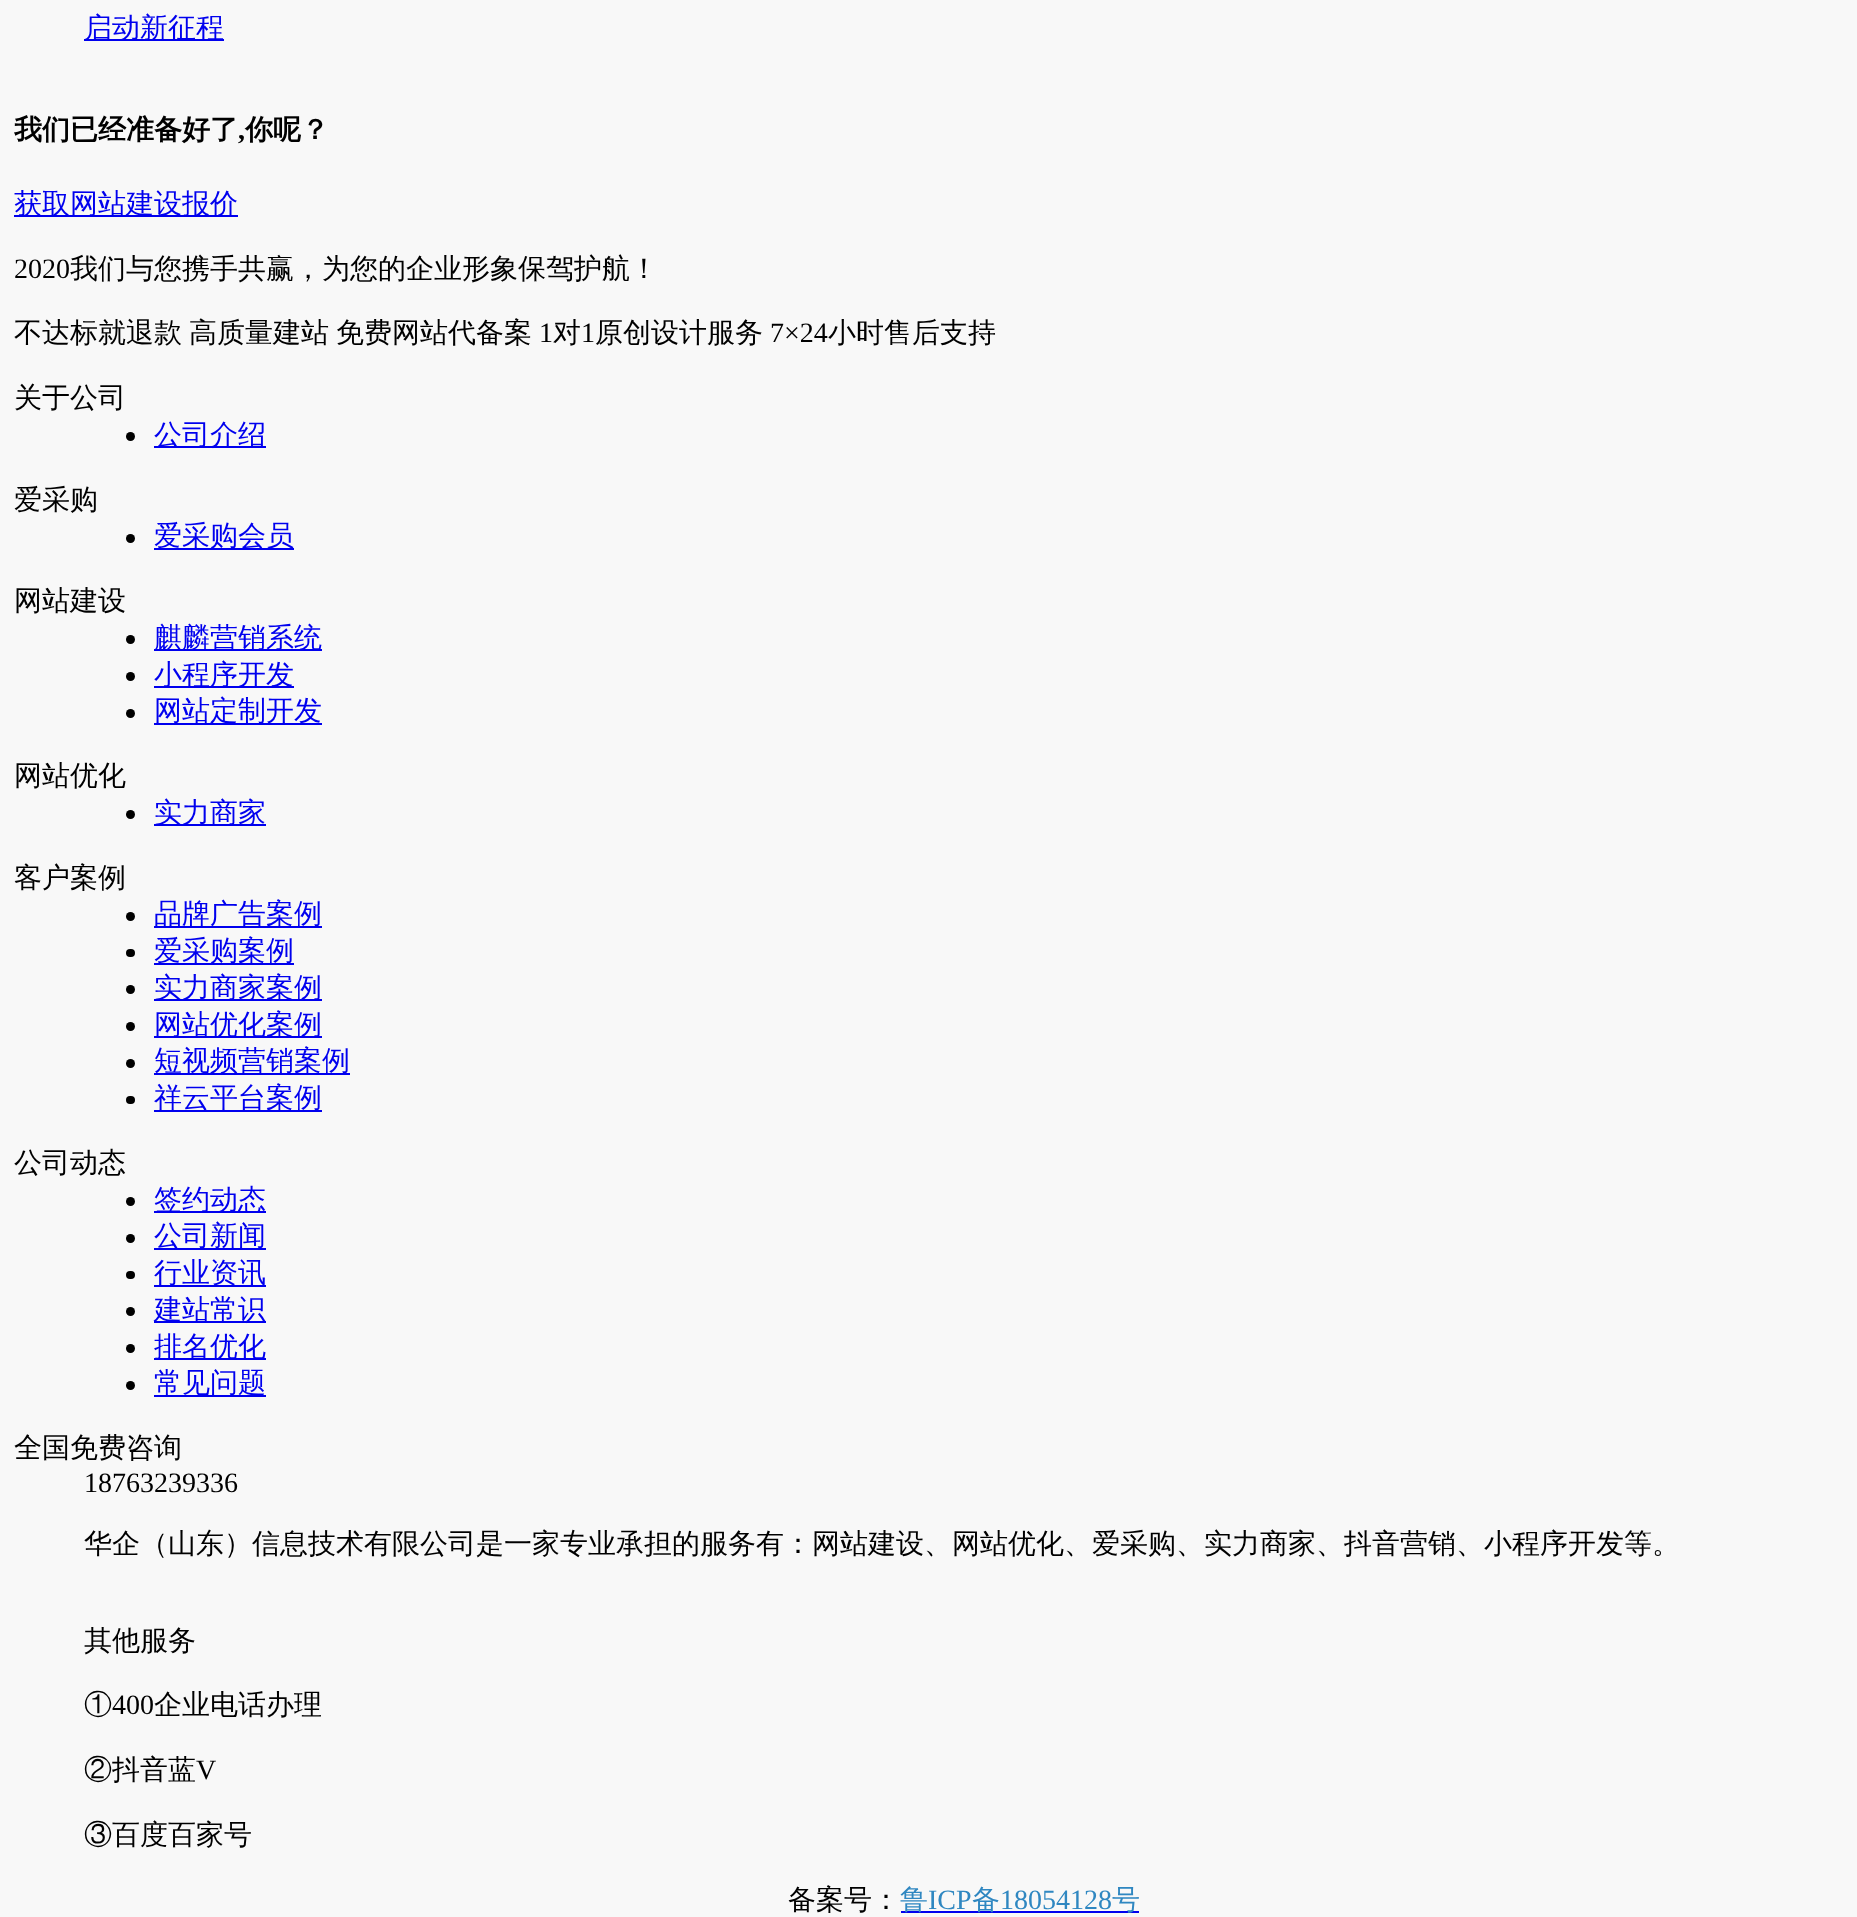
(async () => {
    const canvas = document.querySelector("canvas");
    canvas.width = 1857;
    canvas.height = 1917;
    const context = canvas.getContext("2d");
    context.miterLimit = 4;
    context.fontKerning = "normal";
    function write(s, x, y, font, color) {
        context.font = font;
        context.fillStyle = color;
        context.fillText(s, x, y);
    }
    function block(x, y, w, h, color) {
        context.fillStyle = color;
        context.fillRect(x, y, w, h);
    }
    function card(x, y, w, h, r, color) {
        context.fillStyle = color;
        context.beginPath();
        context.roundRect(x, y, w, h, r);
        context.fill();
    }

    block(0, 0, 1857, 1917, "rgb(248, 248, 248)");
    block(84, 39, 140, 2, "rgb(0, 0, 238)");
    write("启动新征程", 84, 37, "500 28px WenQuanYi Zen Hei", "rgb(0, 0, 238)");
    write("我们已经准备好了", 14, 139, "bold 28px WenQuanYi Zen Hei", "rgb(0, 0, 0)");
    write(",", 238, 139, "bold 28px Liberation Serif", "rgb(0, 0, 0)");
    write("你呢？", 245, 139, "bold 28px WenQuanYi Zen Hei", "rgb(0, 0, 0)");
    block(14, 215, 224, 2, "rgb(0, 0, 238)");
    write("获取网站建设报价", 14, 213, "500 28px WenQuanYi Zen Hei", "rgb(0, 0, 238)");
    write("2020", 14, 278, "28px Liberation Serif", "rgb(0, 0, 0)");
    write("我们与您携手共赢，为您的企业形象保驾护航！", 70, 278, "500 28px WenQuanYi Zen Hei", "rgb(0, 0, 0)");
    write("不达标就退款", 14, 342, "500 28px WenQuanYi Zen Hei", "rgb(0, 0, 0)");
    write("高质量建站", 189, 342, "500 28px WenQuanYi Zen Hei", "rgb(0, 0, 0)");
    write("免费网站代备案", 336, 342, "500 28px WenQuanYi Zen Hei", "rgb(0, 0, 0)");
    write("1", 539, 342, "28px Liberation Serif", "rgb(0, 0, 0)");
    write("对", 553, 342, "500 28px WenQuanYi Zen Hei", "rgb(0, 0, 0)");
    write("1", 581, 342, "28px Liberation Serif", "rgb(0, 0, 0)");
    write("原创设计服务", 595, 342, "500 28px WenQuanYi Zen Hei", "rgb(0, 0, 0)");
    write("7×24", 770, 342, "28px Liberation Serif", "rgb(0, 0, 0)");
    write("小时售后支持", 828, 342, "500 28px WenQuanYi Zen Hei", "rgb(0, 0, 0)");
    write("关于公司", 14, 407, "500 28px WenQuanYi Zen Hei", "rgb(0, 0, 0)");
    context.beginPath();
    context.arc(130.5, 436.5, 4.5, 0, Math.PI * 2);
    context.fill();
    block(154, 446, 112, 2, "rgb(0, 0, 238)");
    write("公司介绍", 154, 444, "500 28px WenQuanYi Zen Hei", "rgb(0, 0, 238)");
    write("爱采购", 14, 509, "500 28px WenQuanYi Zen Hei", "rgb(0, 0, 0)");
    context.beginPath();
    context.arc(130.5, 538.5, 4.5, 0, Math.PI * 2);
    context.fill();
    block(154, 548, 140, 2, "rgb(0, 0, 238)");
    write("爱采购会员", 154, 545, "500 28px WenQuanYi Zen Hei", "rgb(0, 0, 238)");
    write("网站建设", 14, 610, "500 28px WenQuanYi Zen Hei", "rgb(0, 0, 0)");
    context.beginPath();
    context.arc(130.5, 639.5, 4.5, 0, Math.PI * 2);
    context.fill();
    block(154, 649, 168, 2, "rgb(0, 0, 238)");
    write("麒麟营销系统", 154, 647, "500 28px WenQuanYi Zen Hei", "rgb(0, 0, 238)");
    context.fillStyle = "rgb(0, 0, 0)";
    context.beginPath();
    context.arc(130.5, 676.5, 4.5, 0, Math.PI * 2);
    context.fill();
    block(154, 686, 140, 2, "rgb(0, 0, 238)");
    write("小程序开发", 154, 684, "500 28px WenQuanYi Zen Hei", "rgb(0, 0, 238)");
    context.fillStyle = "rgb(0, 0, 0)";
    context.beginPath();
    context.arc(130.5, 713.5, 4.5, 0, Math.PI * 2);
    context.fill();
    block(154, 723, 168, 2, "rgb(0, 0, 238)");
    write("网站定制开发", 154, 720, "500 28px WenQuanYi Zen Hei", "rgb(0, 0, 238)");
    write("网站优化", 14, 785, "500 28px WenQuanYi Zen Hei", "rgb(0, 0, 0)");
    context.beginPath();
    context.arc(130.5, 814.5, 4.5, 0, Math.PI * 2);
    context.fill();
    block(154, 824, 112, 2, "rgb(0, 0, 238)");
    write("实力商家", 154, 822, "500 28px WenQuanYi Zen Hei", "rgb(0, 0, 238)");
    write("客户案例", 14, 887, "500 28px WenQuanYi Zen Hei", "rgb(0, 0, 0)");
    context.beginPath();
    context.arc(130.5, 916.5, 4.5, 0, Math.PI * 2);
    context.fill();
    block(154, 926, 168, 2, "rgb(0, 0, 238)");
    write("品牌广告案例", 154, 923, "500 28px WenQuanYi Zen Hei", "rgb(0, 0, 238)");
    card(126, 949, 9, 8, 4, "rgb(0, 0, 0)");
    block(154, 963, 140, 2, "rgb(0, 0, 238)");
    write("爱采购案例", 154, 960, "500 28px WenQuanYi Zen Hei", "rgb(0, 0, 238)");
    context.fillStyle = "rgb(0, 0, 0)";
    context.beginPath();
    context.arc(130.5, 989.5, 4.5, 0, Math.PI * 2);
    context.fill();
    block(154, 999, 168, 2, "rgb(0, 0, 238)");
    write("实力商家案例", 154, 997, "500 28px WenQuanYi Zen Hei", "rgb(0, 0, 238)");
    context.fillStyle = "rgb(0, 0, 0)";
    context.beginPath();
    context.arc(130.5, 1026.5, 4.5, 0, Math.PI * 2);
    context.fill();
    block(154, 1036, 168, 2, "rgb(0, 0, 238)");
    write("网站优化案例", 154, 1034, "500 28px WenQuanYi Zen Hei", "rgb(0, 0, 238)");
    context.fillStyle = "rgb(0, 0, 0)";
    context.beginPath();
    context.arc(130.5, 1063.5, 4.5, 0, Math.PI * 2);
    context.fill();
    block(154, 1073, 196, 2, "rgb(0, 0, 238)");
    write("短视频营销案例", 154, 1070, "500 28px WenQuanYi Zen Hei", "rgb(0, 0, 238)");
    card(126, 1096, 9, 8, 4, "rgb(0, 0, 0)");
    block(154, 1110, 168, 2, "rgb(0, 0, 238)");
    write("祥云平台案例", 154, 1107, "500 28px WenQuanYi Zen Hei", "rgb(0, 0, 238)");
    write("公司动态", 14, 1172, "500 28px WenQuanYi Zen Hei", "rgb(0, 0, 0)");
    context.beginPath();
    context.arc(130.5, 1201.5, 4.5, 0, Math.PI * 2);
    context.fill();
    block(154, 1211, 112, 2, "rgb(0, 0, 238)");
    write("签约动态", 154, 1209, "500 28px WenQuanYi Zen Hei", "rgb(0, 0, 238)");
    context.fillStyle = "rgb(0, 0, 0)";
    context.beginPath();
    context.arc(130.5, 1238.5, 4.5, 0, Math.PI * 2);
    context.fill();
    block(154, 1248, 112, 2, "rgb(0, 0, 238)");
    write("公司新闻", 154, 1245, "500 28px WenQuanYi Zen Hei", "rgb(0, 0, 238)");
    card(126, 1271, 9, 8, 4, "rgb(0, 0, 0)");
    block(154, 1285, 112, 2, "rgb(0, 0, 238)");
    write("行业资讯", 154, 1282, "500 28px WenQuanYi Zen Hei", "rgb(0, 0, 238)");
    context.fillStyle = "rgb(0, 0, 0)";
    context.beginPath();
    context.arc(130.5, 1311.5, 4.5, 0, Math.PI * 2);
    context.fill();
    block(154, 1321, 112, 2, "rgb(0, 0, 238)");
    write("建站常识", 154, 1319, "500 28px WenQuanYi Zen Hei", "rgb(0, 0, 238)");
    context.fillStyle = "rgb(0, 0, 0)";
    context.beginPath();
    context.arc(130.5, 1348.5, 4.5, 0, Math.PI * 2);
    context.fill();
    block(154, 1358, 112, 2, "rgb(0, 0, 238)");
    write("排名优化", 154, 1356, "500 28px WenQuanYi Zen Hei", "rgb(0, 0, 238)");
    context.fillStyle = "rgb(0, 0, 0)";
    context.beginPath();
    context.arc(130.5, 1385.5, 4.5, 0, Math.PI * 2);
    context.fill();
    block(154, 1395, 112, 2, "rgb(0, 0, 238)");
    write("常见问题", 154, 1392, "500 28px WenQuanYi Zen Hei", "rgb(0, 0, 238)");
    write("全国免费咨询", 14, 1457, "500 28px WenQuanYi Zen Hei", "rgb(0, 0, 0)");
    write("18763239336", 84, 1492, "28px Liberation Serif", "rgb(0, 0, 0)");
    write("华企（山东）信息技术有限公司是一家专业承担的服务有：网站建设、网站优化、爱采购、实力商家、抖音营销、小程序开发等。", 84, 1553, "500 28px WenQuanYi Zen Hei", "rgb(0, 0, 0)");
    write("其他服务", 84, 1650, "500 28px WenQuanYi Zen Hei", "rgb(0, 0, 0)");
    write("①", 84, 1714, "500 28px WenQuanYi Zen Hei", "rgb(0, 0, 0)");
    write("400", 112, 1714, "28px Liberation Serif", "rgb(0, 0, 0)");
    write("企业电话办理", 154, 1714, "500 28px WenQuanYi Zen Hei", "rgb(0, 0, 0)");
    write("②抖音蓝", 84, 1779, "500 28px WenQuanYi Zen Hei", "rgb(0, 0, 0)");
    write("V", 196, 1779, "28px Liberation Serif", "rgb(0, 0, 0)");
    write("③百度百家号", 84, 1844, "500 28px WenQuanYi Zen Hei", "rgb(0, 0, 0)");
    write("备案号：", 788, 1909, "500 28px WenQuanYi Zen Hei", "rgb(0, 0, 0)");
    block(901, 1911, 238, 2, "rgb(0, 0, 238)");
    write("鲁", 900, 1909, "500 28px WenQuanYi Zen Hei", "rgb(47, 135, 193)");
    write("ICP", 928, 1909, "28px Liberation Serif", "rgb(47, 135, 193)");
    write("备", 972, 1909, "500 28px WenQuanYi Zen Hei", "rgb(47, 135, 193)");
    write("18054128", 1000, 1909, "28px Liberation Serif", "rgb(47, 135, 193)");
    write("号", 1112, 1909, "500 28px WenQuanYi Zen Hei", "rgb(47, 135, 193)");
})();
